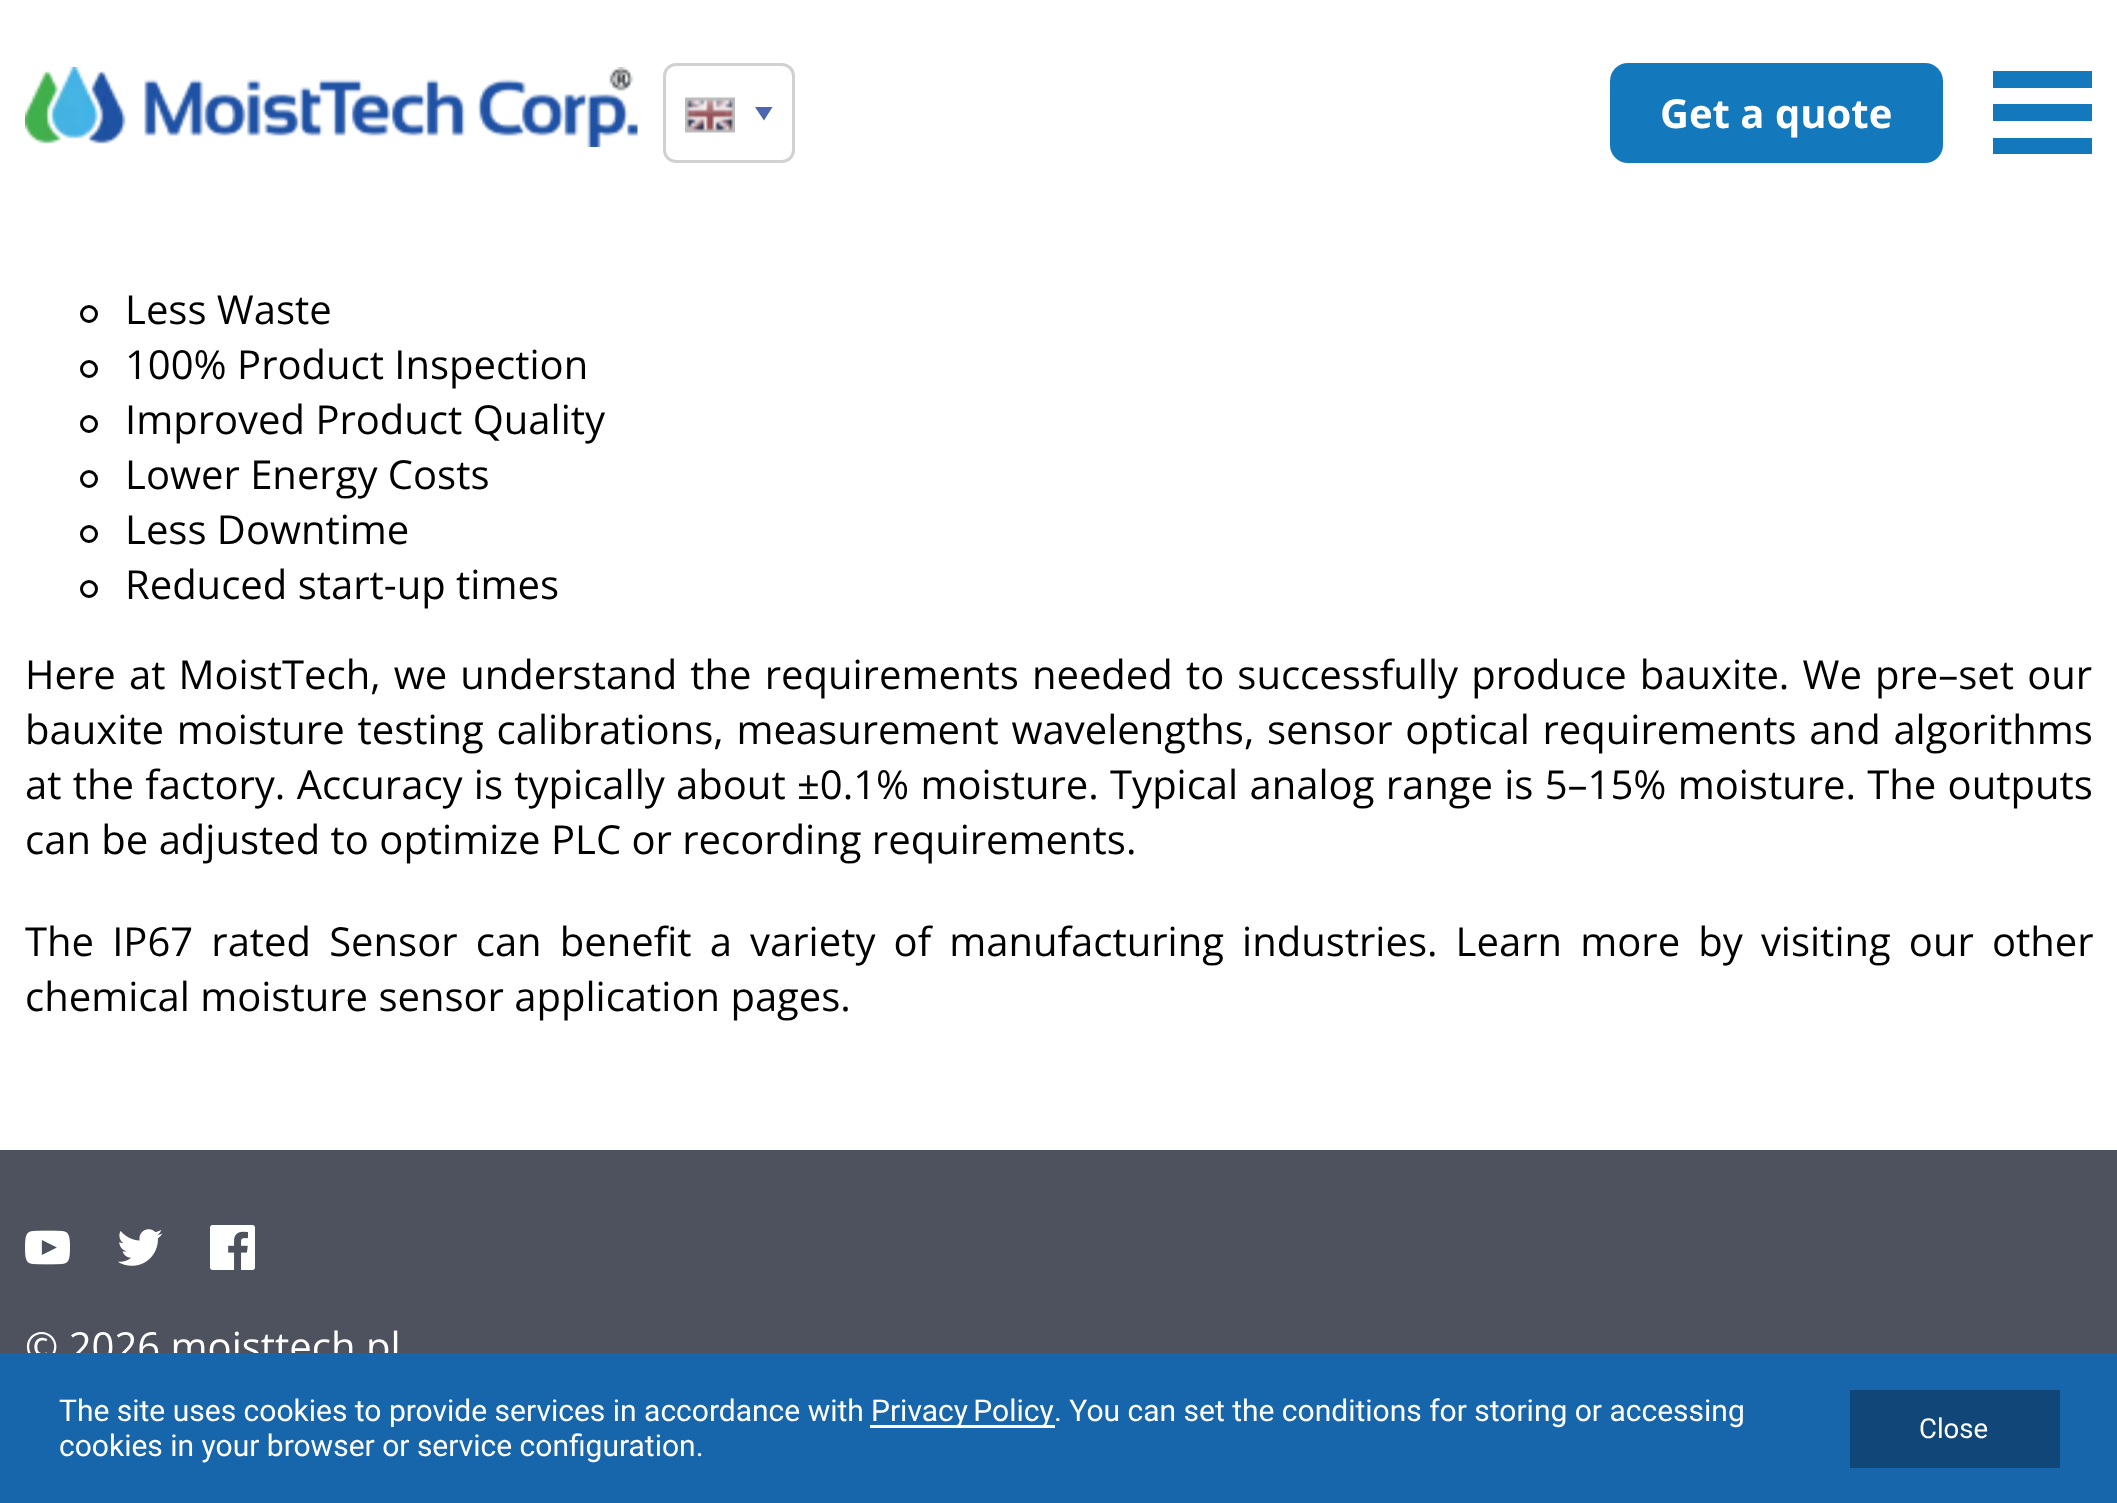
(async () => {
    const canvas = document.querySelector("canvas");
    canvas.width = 2117;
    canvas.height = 1503;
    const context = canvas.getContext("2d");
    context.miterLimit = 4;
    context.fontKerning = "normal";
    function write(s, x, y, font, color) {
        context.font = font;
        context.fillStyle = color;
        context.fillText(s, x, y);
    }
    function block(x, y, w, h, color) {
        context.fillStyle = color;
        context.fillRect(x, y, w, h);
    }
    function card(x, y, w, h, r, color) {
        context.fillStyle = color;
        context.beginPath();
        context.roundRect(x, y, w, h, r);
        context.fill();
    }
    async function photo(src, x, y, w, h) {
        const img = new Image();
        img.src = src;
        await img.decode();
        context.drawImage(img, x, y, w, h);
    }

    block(0, 0, 2117, 1503, "rgb(255, 255, 255)");
    await photo("media/1.png", 25, 67, 613, 80);
    context.beginPath();
    context.roundRect(664.5, 64.5, 129, 97, 11.5);
    context.strokeStyle = "rgb(209, 209, 209)";
    context.lineWidth = 3;
    context.stroke();
    context.fillStyle = "rgb(76, 103, 175)";
    context.beginPath();
    context.moveTo(764, 120.5);
    context.lineTo(755, 107);
    context.lineTo(772.5, 107);
    context.closePath();
    context.fill();
    await photo("media/2.png", 685, 97, 50, 36);
    card(1610, 63, 333, 100, 18, "rgb(19, 120, 188)");
    write("Get a quote", 1660, 128, "bold 40px Open Sans", "rgb(255, 255, 255)");
    context.save();
    context.beginPath();
    context.rect(1993, 63, 100, 100);
    context.clip();
    context.fillStyle = "rgb(19, 120, 188)";
    context.beginPath();
    context.moveTo(2092, 88);
    context.lineTo(1992, 88);
    context.lineTo(1992, 71);
    context.lineTo(2092, 71);
    context.closePath();
    context.moveTo(2092, 104);
    context.lineTo(1992, 104);
    context.lineTo(1992, 121);
    context.lineTo(2092, 121);
    context.closePath();
    context.moveTo(2092, 138);
    context.lineTo(1992, 138);
    context.lineTo(1992, 154);
    context.lineTo(2092, 154);
    context.closePath();
    context.fill();
    context.restore();
    context.beginPath();
    context.arc(89, 314, 7.5, 0, Math.PI * 2);
    context.strokeStyle = "rgb(0, 0, 0)";
    context.stroke();
    write("Less Waste", 125, 324, "40px Open Sans", "rgb(0, 0, 0)");
    context.beginPath();
    context.arc(89, 369, 7.5, 0, Math.PI * 2);
    context.stroke();
    write("100% Product Inspection", 125, 379, "40px Open Sans", "rgb(0, 0, 0)");
    context.beginPath();
    context.arc(89, 424, 7.5, 0, Math.PI * 2);
    context.stroke();
    write("Improved Product Quality", 125, 434, "40px Open Sans", "rgb(0, 0, 0)");
    context.beginPath();
    context.arc(89, 479, 7.5, 0, Math.PI * 2);
    context.stroke();
    write("Lower Energy Costs", 125, 489, "40px Open Sans", "rgb(0, 0, 0)");
    context.beginPath();
    context.arc(89, 534, 7.5, 0, Math.PI * 2);
    context.stroke();
    write("Less Downtime", 125, 544, "40px Open Sans", "rgb(0, 0, 0)");
    context.beginPath();
    context.arc(89, 589, 7.5, 0, Math.PI * 2);
    context.stroke();
    write("Reduced start-up times", 125, 599, "40px Open Sans", "rgb(0, 0, 0)");
    context.wordSpacing = "2.75px";
    write("Here at MoistTech, we understand the requirements needed to successfully produce bauxite. We pre–set our", 25, 689, "40px Open Sans", "rgb(0, 0, 0)");
    context.wordSpacing = "2.4px";
    write("bauxite moisture testing calibrations, measurement wavelengths, sensor optical requirements and algorithms", 25, 744, "40px Open Sans", "rgb(0, 0, 0)");
    context.wordSpacing = "0.9px";
    write("at the factory. Accuracy is typically about ±0.1% moisture. Typical analog range is 5–15% moisture. The outputs", 25, 799, "40px Open Sans", "rgb(0, 0, 0)");
    context.wordSpacing = "0px";
    write("can be adjusted to optimize PLC or recording requirements.", 25, 854, "40px Open Sans", "rgb(0, 0, 0)");
    context.wordSpacing = "7.75px";
    write("The IP67 rated Sensor can benefit a variety of manufacturing industries. Learn more by visiting our other", 25, 956, "40px Open Sans", "rgb(0, 0, 0)");
    context.wordSpacing = "0px";
    write("chemical moisture sensor application pages.", 25, 1011, "40px Open Sans", "rgb(0, 0, 0)");
    block(0, 1150, 2117, 203, "rgb(78, 82, 94)");
    await photo("media/3.png", 25, 1230, 45, 35);
    await photo("media/4.png", 118, 1229, 45, 37);
    await photo("media/5.png", 210, 1225, 45, 45);
    write("© 2026 moisttech.pl", 25, 1361, "40px Open Sans", "rgb(255, 255, 255)");
    block(0, 1353, 2117, 150, "rgb(23, 102, 172)");
    write("The site uses cookies to provide services in accordance with", 59, 1421, "30px Roboto", "rgb(255, 255, 255)");
    block(870, 1425, 185, 3, "rgb(255, 255, 255)");
    context.wordSpacing = "-2px";
    write("Privacy Policy", 871, 1421, "30px Roboto", "rgb(255, 255, 255)");
    context.wordSpacing = "0px";
    write(". You can set the conditions for storing or accessing", 1054, 1421, "30px Roboto", "rgb(255, 255, 255)");
    write("cookies in your browser or service configuration.", 59, 1456, "30px Roboto", "rgb(255, 255, 255)");
    block(1850, 1390, 210, 78, "rgb(16, 71, 120)");
    write("Close", 1919, 1438, "27.5px Roboto", "rgb(255, 255, 255)");
})();
